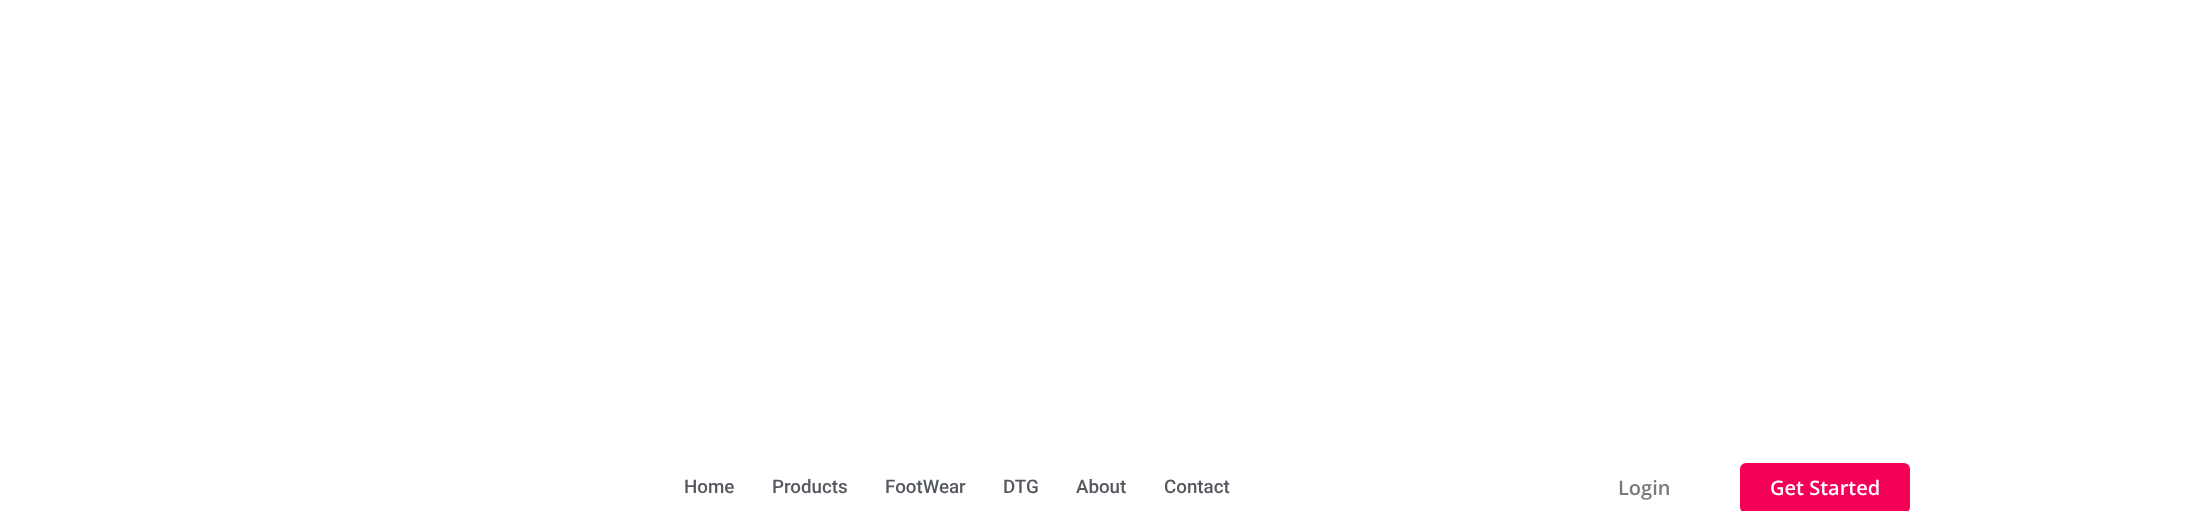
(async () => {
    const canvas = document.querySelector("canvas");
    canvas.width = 2185;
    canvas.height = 511;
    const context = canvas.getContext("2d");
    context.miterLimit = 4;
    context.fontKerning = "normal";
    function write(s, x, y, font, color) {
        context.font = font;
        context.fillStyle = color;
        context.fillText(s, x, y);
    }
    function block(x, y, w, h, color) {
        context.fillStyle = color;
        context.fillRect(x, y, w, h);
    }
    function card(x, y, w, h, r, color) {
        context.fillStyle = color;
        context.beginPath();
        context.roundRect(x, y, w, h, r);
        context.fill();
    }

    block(0, 0, 2185, 511, "rgb(255, 255, 255)");
    write("Home", 684, 493, "500 18.75px Roboto", "rgb(84, 89, 95)");
    write("Products", 772, 493, "500 18.75px Roboto", "rgb(84, 89, 95)");
    write("FootWear", 885, 493, "500 18.75px Roboto", "rgb(84, 89, 95)");
    write("DTG", 1003, 493, "500 18.75px Roboto", "rgb(84, 89, 95)");
    write("About", 1076, 493, "500 18.75px Roboto", "rgb(84, 89, 95)");
    write("Contact", 1164, 493, "500 18.75px Roboto", "rgb(84, 89, 95)");
    write("Login", 1618, 495, "600 20px Open Sans", "rgb(122, 122, 122)");
    card(1740, 463, 170, 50, 6, "rgb(245, 0, 87)");
    write("Get Started", 1770, 495, "600 20px Open Sans", "rgb(255, 255, 255)");
})();
